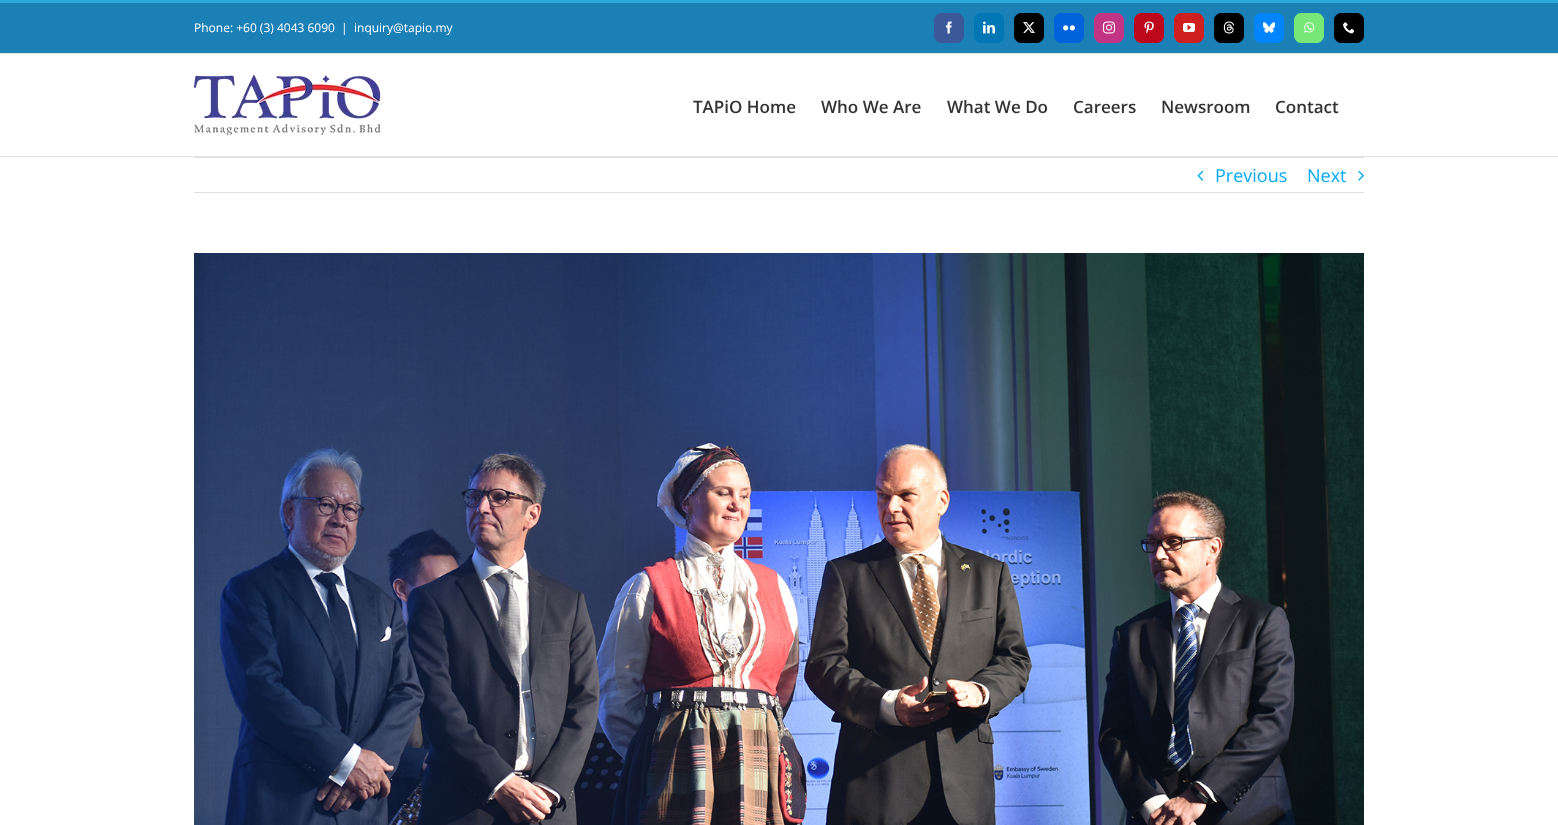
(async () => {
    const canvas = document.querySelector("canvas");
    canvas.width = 1558;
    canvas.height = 825;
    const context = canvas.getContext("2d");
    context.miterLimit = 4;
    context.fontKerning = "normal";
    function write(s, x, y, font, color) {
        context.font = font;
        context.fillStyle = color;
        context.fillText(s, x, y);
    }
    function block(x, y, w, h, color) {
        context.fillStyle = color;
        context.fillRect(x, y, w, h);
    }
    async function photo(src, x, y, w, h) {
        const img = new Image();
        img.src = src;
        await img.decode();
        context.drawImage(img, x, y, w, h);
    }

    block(0, 0, 1558, 825, "rgb(255, 255, 255)");
    block(0, 3, 1558, 50, "rgb(26, 128, 182)");
    block(0, 0, 1558, 3, "rgb(43, 169, 219)");
    block(0, 53, 1558, 1, "rgb(229, 229, 229)");
    write("Phone: +60 (3) 4043 6090", 194, 32, "12px Open Sans", "rgb(255, 255, 255)");
    write("|", 341, 32, "12px Open Sans", "rgb(255, 255, 255)");
    write("inquiry@tapio.my", 354, 32, "12px Open Sans", "rgb(255, 255, 255)");
    context.fillStyle = "rgb(59, 89, 152)";
    context.beginPath();
    context.roundRect(934.5, 13.5, 29, 29, 6.5);
    context.fill();
    context.strokeStyle = "rgb(59, 89, 152)";
    context.stroke();
    await photo("media/1.png", 946, 21, 6, 13);
    context.fillStyle = "rgb(0, 119, 181)";
    context.beginPath();
    context.roundRect(974.5, 13.5, 29, 29, 6.5);
    context.fill();
    context.strokeStyle = "rgb(0, 119, 181)";
    context.stroke();
    await photo("media/2.png", 983, 21, 12, 13);
    context.fillStyle = "rgb(0, 0, 0)";
    context.beginPath();
    context.roundRect(1014.5, 13.5, 29, 29, 6.5);
    context.fill();
    context.strokeStyle = "rgb(0, 0, 0)";
    context.stroke();
    await photo("media/3.png", 1023, 22, 12, 11);
    context.fillStyle = "rgb(0, 99, 220)";
    context.beginPath();
    context.roundRect(1054.5, 13.5, 29, 29, 6.5);
    context.fill();
    context.strokeStyle = "rgb(0, 99, 220)";
    context.stroke();
    await photo("media/4.png", 1063, 25, 12, 6);
    context.fillStyle = "rgb(193, 53, 132)";
    context.beginPath();
    context.roundRect(1094.5, 13.5, 29, 29, 6.5);
    context.fill();
    context.strokeStyle = "rgb(193, 53, 132)";
    context.stroke();
    await photo("media/5.png", 1103, 21, 12, 13);
    context.fillStyle = "rgb(189, 8, 28)";
    context.beginPath();
    context.roundRect(1134.5, 13.5, 29, 29, 6.5);
    context.fill();
    context.strokeStyle = "rgb(189, 8, 28)";
    context.stroke();
    await photo("media/6.png", 1144, 21, 10, 13);
    context.fillStyle = "rgb(205, 32, 31)";
    context.beginPath();
    context.roundRect(1174.5, 13.5, 29, 29, 6.5);
    context.fill();
    context.strokeStyle = "rgb(205, 32, 31)";
    context.stroke();
    await photo("media/7.png", 1183, 23, 12, 9);
    context.fillStyle = "rgb(0, 0, 0)";
    context.beginPath();
    context.roundRect(1214.5, 13.5, 29, 29, 6.5);
    context.fill();
    context.strokeStyle = "rgb(0, 0, 0)";
    context.stroke();
    await photo("media/8.png", 1223, 21, 12, 13);
    context.fillStyle = "rgb(0, 133, 255)";
    context.beginPath();
    context.roundRect(1254.5, 13.5, 29, 29, 6.5);
    context.fill();
    context.strokeStyle = "rgb(0, 133, 255)";
    context.stroke();
    await photo("media/9.png", 1263, 22, 12, 11);
    context.fillStyle = "rgb(119, 232, 120)";
    context.beginPath();
    context.roundRect(1294.5, 13.5, 29, 29, 6.5);
    context.fill();
    context.strokeStyle = "rgb(119, 232, 120)";
    context.stroke();
    await photo("media/10.png", 1304, 22, 11, 11);
    context.fillStyle = "rgb(0, 0, 0)";
    context.beginPath();
    context.roundRect(1334.5, 13.5, 29, 29, 6.5);
    context.fill();
    context.strokeStyle = "rgb(0, 0, 0)";
    context.stroke();
    await photo("media/11.png", 1343, 22, 12, 12);
    block(0, 156, 1558, 1, "rgb(229, 229, 229)");
    await photo("media/12.png", 194, 75, 188, 60);
    write("TAPiO Home", 693, 113, "600 17px Open Sans", "rgb(51, 51, 51)");
    write("Who We Are", 821, 113, "600 17px Open Sans", "rgb(51, 51, 51)");
    write("What We Do", 947, 113, "600 17px Open Sans", "rgb(51, 51, 51)");
    write("Careers", 1073, 113, "600 17px Open Sans", "rgb(51, 51, 51)");
    write("Newsroom", 1161, 113, "600 17px Open Sans", "rgb(51, 51, 51)");
    write("Contact", 1275, 113, "600 17px Open Sans", "rgb(51, 51, 51)");
    block(194, 157, 1170, 1, "rgb(224, 222, 222)");
    block(194, 192, 1170, 1, "rgb(224, 222, 222)");
    await photo("media/13.png", 1197, 170, 7, 11);
    write("Previous", 1215, 182, "18px Open Sans", "rgb(3, 169, 244)");
    write("Next", 1307, 182, "18px Open Sans", "rgb(3, 169, 244)");
    await photo("media/14.png", 1358, 170, 6, 11);
    await photo("media/15.png", 194, 253, 1170, 572);
})();
